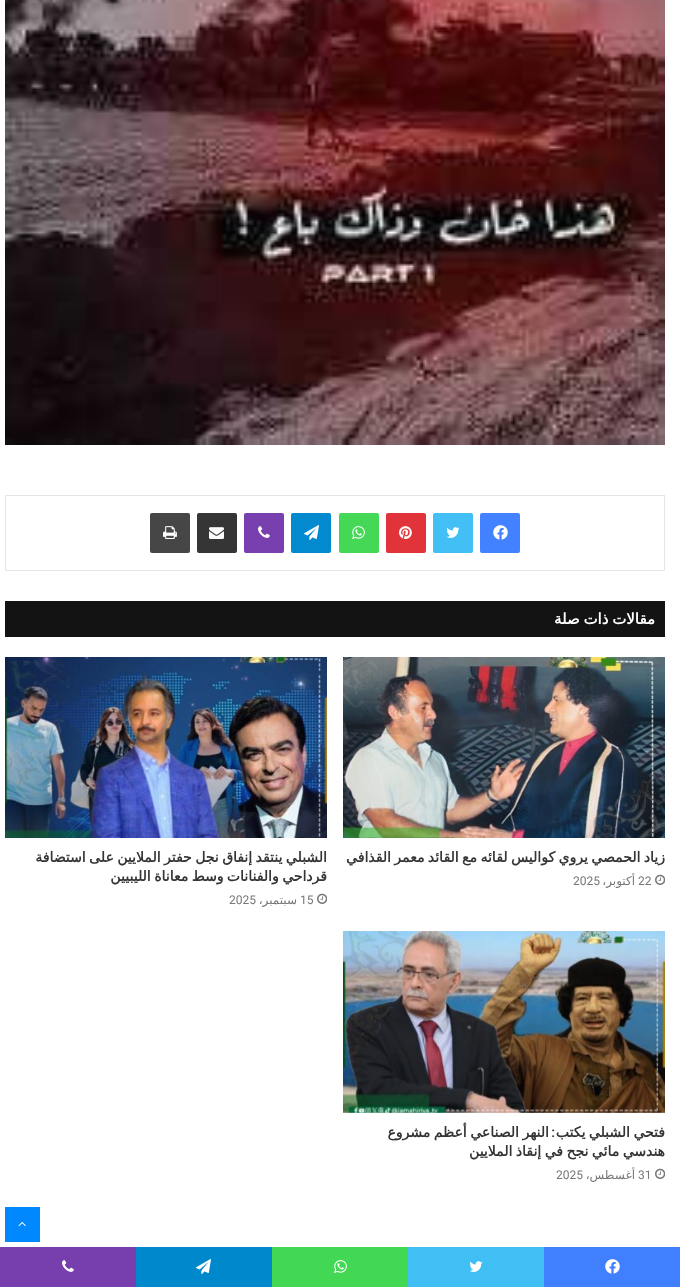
(async () => {
    const canvas = document.querySelector("canvas");
    canvas.width = 680;
    canvas.height = 1287;
    const context = canvas.getContext("2d");
    context.miterLimit = 4;
    context.fontKerning = "normal";
    function write(s, x, y, font, color) {
        context.font = font;
        context.fillStyle = color;
        context.fillText(s, x, y);
    }
    function block(x, y, w, h, color) {
        context.fillStyle = color;
        context.fillRect(x, y, w, h);
    }
    function card(x, y, w, h, r, color) {
        context.fillStyle = color;
        context.beginPath();
        context.roundRect(x, y, w, h, r);
        context.fill();
    }
    async function photo(src, x, y, w, h) {
        const img = new Image();
        img.src = src;
        await img.decode();
        context.drawImage(img, x, y, w, h);
    }

    block(0, 0, 680, 1287, "rgb(255, 255, 255)");
    await photo("media/1.png", 5, 0, 660, 445);
    context.strokeStyle = "rgb(230, 230, 230)";
    context.strokeRect(5.5, 495.5, 659, 75);
    card(480, 513, 40, 40, 2, "rgb(66, 129, 255)");
    await photo("media/2.png", 493, 525, 15, 15);
    card(433, 513, 40, 40, 2, "rgb(66, 192, 245)");
    await photo("media/3.png", 446, 527, 14, 11);
    card(386, 513, 40, 40, 2, "rgb(225, 51, 58)");
    await photo("media/4.png", 399, 526, 13, 13);
    card(339, 513, 40, 40, 2, "rgb(69, 216, 86)");
    await photo("media/5.png", 352, 526, 13, 13);
    card(291, 513, 40, 40, 2, "rgb(3, 137, 205)");
    await photo("media/6.png", 304, 525, 15, 15);
    card(244, 513, 40, 40, 2, "rgb(120, 64, 174)");
    await photo("media/7.png", 258, 526, 12, 12);
    card(197, 513, 40, 40, 2, "rgb(53, 53, 53)");
    await photo("media/8.png", 209, 527, 15, 12);
    card(150, 513, 40, 40, 2, "rgb(70, 70, 70)");
    await photo("media/9.png", 163, 526, 14, 13);
    block(5, 601, 660, 36, "rgb(19, 19, 19)");
    context.wordSpacing = "-1px";
    context.direction = "rtl";
    write("مقالات ذات صلة", 655, 624, "bold 15px DejaVu Sans", "rgb(255, 255, 255)");
    await photo("media/10.png", 343, 657, 322, 181);
    write("زياد الحمصي يروي كواليس لقائه مع القائد معمر القذافي", 665, 862, "bold 14px DejaVu Sans", "rgb(53, 53, 53)");
    await photo("media/11.png", 655, 874, 10, 11);
    context.wordSpacing = "0px";
    context.direction = "ltr";
    write("22", 638, 885, "12px Roboto", "rgb(119, 119, 119)");
    context.direction = "rtl";
    write("أكتوبر،", 635, 885, "12px DejaVu Sans", "rgb(119, 119, 119)");
    context.direction = "ltr";
    write("2025", 573, 885, "12px Roboto", "rgb(119, 119, 119)");
    await photo("media/12.png", 5, 657, 322, 181);
    context.wordSpacing = "-1px";
    context.direction = "rtl";
    write("الشبلي ينتقد إنفاق نجل حفتر الملايين على استضافة", 327, 862, "bold 14px DejaVu Sans", "rgb(53, 53, 53)");
    write("قرداحي والفنانات وسط معاناة الليبيين", 327, 881, "bold 14px DejaVu Sans", "rgb(53, 53, 53)");
    await photo("media/11.png", 317, 893, 10, 11);
    context.wordSpacing = "0px";
    context.direction = "ltr";
    write("15", 300, 904, "12px Roboto", "rgb(119, 119, 119)");
    context.direction = "rtl";
    write("سبتمبر،", 297, 904, "12px DejaVu Sans", "rgb(119, 119, 119)");
    context.direction = "ltr";
    write("2025", 229, 904, "12px Roboto", "rgb(119, 119, 119)");
    await photo("media/13.png", 343, 931, 322, 182);
    context.wordSpacing = "-1px";
    context.direction = "rtl";
    write("فتحي الشبلي يكتب", 665, 1137, "bold 14px DejaVu Sans", "rgb(53, 53, 53)");
    context.wordSpacing = "0px";
    write(":", 555, 1137, "600 14px Roboto", "rgb(53, 53, 53)");
    context.wordSpacing = "-1px";
    write("النهر الصناعي أعظم مشروع", 549, 1137, "bold 14px DejaVu Sans", "rgb(53, 53, 53)");
    write("هندسي مائي نجح في إنقاذ الملايين", 665, 1156, "bold 14px DejaVu Sans", "rgb(53, 53, 53)");
    await photo("media/11.png", 655, 1168, 10, 11);
    context.wordSpacing = "0px";
    context.direction = "ltr";
    write("31", 638, 1179, "12px Roboto", "rgb(119, 119, 119)");
    context.direction = "rtl";
    write("أغسطس،", 635, 1179, "12px DejaVu Sans", "rgb(119, 119, 119)");
    context.direction = "ltr";
    write("2025", 556, 1179, "12px Roboto", "rgb(119, 119, 119)");
    block(5, 1207, 35, 35, "rgb(0, 136, 255)");
    await photo("media/14.png", 18, 1221, 8, 6);
    block(544, 1247, 136, 40, "rgb(64, 128, 255)");
    await photo("media/15.png", 605, 1259, 15, 15);
    block(408, 1247, 136, 40, "rgb(64, 191, 245)");
    await photo("media/16.png", 469, 1261, 14, 11);
    block(272, 1247, 136, 40, "rgb(67, 216, 84)");
    await photo("media/17.png", 334, 1260, 13, 13);
    block(136, 1247, 136, 40, "rgb(0, 136, 204)");
    await photo("media/18.png", 196, 1259, 15, 15);
    block(0, 1247, 136, 40, "rgb(119, 62, 173)");
    await photo("media/19.png", 62, 1260, 12, 12);
})();
